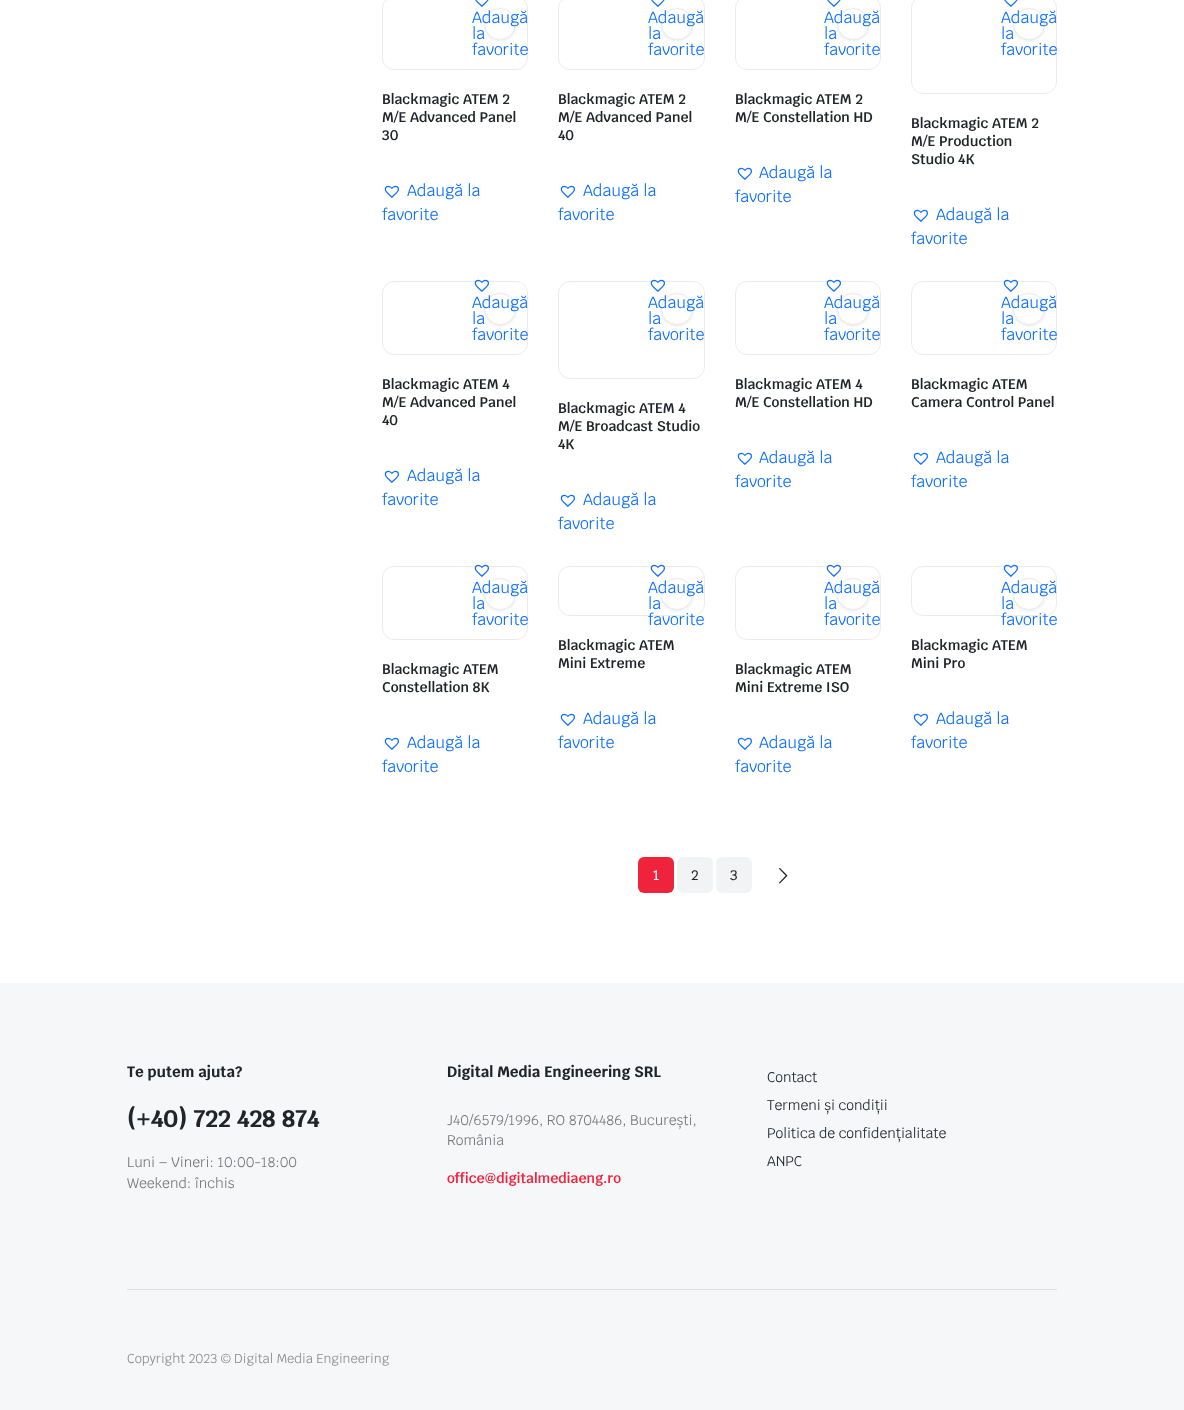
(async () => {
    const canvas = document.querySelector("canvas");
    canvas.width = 1184;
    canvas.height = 1410;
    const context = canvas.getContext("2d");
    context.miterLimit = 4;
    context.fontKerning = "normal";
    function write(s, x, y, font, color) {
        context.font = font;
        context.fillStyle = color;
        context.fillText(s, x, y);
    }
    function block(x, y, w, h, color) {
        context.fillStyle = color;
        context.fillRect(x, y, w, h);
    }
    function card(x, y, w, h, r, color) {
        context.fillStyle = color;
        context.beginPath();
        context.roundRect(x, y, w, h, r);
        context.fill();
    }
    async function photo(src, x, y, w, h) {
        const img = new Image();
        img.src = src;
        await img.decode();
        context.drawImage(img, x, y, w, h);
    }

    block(0, 0, 1184, 1410, "rgb(255, 255, 255)");
    context.beginPath();
    context.roundRect(382.5, -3.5, 145, 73, 11.5);
    context.strokeStyle = "rgb(233, 236, 239)";
    context.stroke();
    context.fillStyle = "rgba(33, 37, 41, 0.1)";
    context.filter = "blur(1.5px)";
    context.beginPath();
    context.roundRect(484, 9, 32, 32, 16);
    context.fill();
    context.filter = "none";
    context.fillStyle = "rgb(255, 255, 255)";
    context.beginPath();
    context.arc(500, 24, 15.5, 0, Math.PI * 2);
    context.fill();
    context.stroke();
    await photo("media/1.png", 475, 0, 14, 7);
    context.letterSpacing = "-0.05px";
    write("Adaugă", 472, 23, "16px Krub", "rgb(13, 110, 253)");
    write("la", 472, 39, "16px Krub", "rgb(13, 110, 253)");
    write("favorite", 472, 55, "16px Krub", "rgb(13, 110, 253)");
    context.letterSpacing = "0px";
    write("Blackmagic ATEM 2", 382, 104, "600 14px Krub", "rgb(33, 37, 41)");
    write("M/E Advanced Panel", 382, 122, "600 14px Krub", "rgb(33, 37, 41)");
    write("30", 382, 140, "600 14px Krub", "rgb(33, 37, 41)");
    await photo("media/2.png", 384, 185, 15, 13);
    context.letterSpacing = "-0.05px";
    write("Adaugă la", 407, 196, "16px Krub", "rgb(13, 110, 253)");
    write("favorite", 382, 220, "16px Krub", "rgb(13, 110, 253)");
    context.beginPath();
    context.roundRect(558.5, -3.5, 146, 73, 11.5);
    context.stroke();
    context.fillStyle = "rgba(33, 37, 41, 0.1)";
    context.filter = "blur(1.5px)";
    context.beginPath();
    context.roundRect(661, 9, 32, 32, 16);
    context.fill();
    context.filter = "none";
    context.fillStyle = "rgb(255, 255, 255)";
    context.beginPath();
    context.arc(677, 24, 15.5, 0, Math.PI * 2);
    context.fill();
    context.stroke();
    await photo("media/1.png", 651, 0, 14, 7);
    write("Adaugă", 648, 23, "16px Krub", "rgb(13, 110, 253)");
    write("la", 648, 39, "16px Krub", "rgb(13, 110, 253)");
    write("favorite", 648, 55, "16px Krub", "rgb(13, 110, 253)");
    context.letterSpacing = "0px";
    write("Blackmagic ATEM 2", 558, 104, "600 14px Krub", "rgb(33, 37, 41)");
    write("M/E Advanced Panel", 558, 122, "600 14px Krub", "rgb(33, 37, 41)");
    write("40", 558, 140, "600 14px Krub", "rgb(33, 37, 41)");
    await photo("media/2.png", 560, 185, 15, 13);
    context.letterSpacing = "-0.05px";
    write("Adaugă la", 583, 196, "16px Krub", "rgb(13, 110, 253)");
    write("favorite", 558, 220, "16px Krub", "rgb(13, 110, 253)");
    context.beginPath();
    context.roundRect(735.5, -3.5, 145, 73, 11.5);
    context.stroke();
    context.fillStyle = "rgba(33, 37, 41, 0.1)";
    context.filter = "blur(1.5px)";
    context.beginPath();
    context.roundRect(837, 9, 32, 32, 16);
    context.fill();
    context.filter = "none";
    context.fillStyle = "rgb(255, 255, 255)";
    context.beginPath();
    context.arc(853, 24, 15.5, 0, Math.PI * 2);
    context.fill();
    context.stroke();
    await photo("media/1.png", 827, 0, 14, 7);
    write("Adaugă", 824, 23, "16px Krub", "rgb(13, 110, 253)");
    write("la", 824, 39, "16px Krub", "rgb(13, 110, 253)");
    write("favorite", 824, 55, "16px Krub", "rgb(13, 110, 253)");
    context.letterSpacing = "0px";
    write("Blackmagic ATEM 2", 735, 104, "600 14px Krub", "rgb(33, 37, 41)");
    write("M/E Constellation HD", 735, 122, "600 14px Krub", "rgb(33, 37, 41)");
    await photo("media/2.png", 737, 167, 15, 13);
    context.letterSpacing = "-0.05px";
    write("Adaugă la", 759, 178, "16px Krub", "rgb(13, 110, 253)");
    write("favorite", 735, 202, "16px Krub", "rgb(13, 110, 253)");
    context.beginPath();
    context.roundRect(911.5, -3.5, 145, 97, 11.5);
    context.stroke();
    context.fillStyle = "rgba(33, 37, 41, 0.1)";
    context.filter = "blur(1.5px)";
    context.beginPath();
    context.roundRect(1013, 9, 32, 32, 16);
    context.fill();
    context.filter = "none";
    context.fillStyle = "rgb(255, 255, 255)";
    context.beginPath();
    context.arc(1029, 24, 15.5, 0, Math.PI * 2);
    context.fill();
    context.stroke();
    await photo("media/1.png", 1004, 0, 14, 7);
    write("Adaugă", 1001, 23, "16px Krub", "rgb(13, 110, 253)");
    write("la", 1001, 39, "16px Krub", "rgb(13, 110, 253)");
    write("favorite", 1001, 55, "16px Krub", "rgb(13, 110, 253)");
    context.letterSpacing = "0px";
    write("Blackmagic ATEM 2", 911, 128, "600 14px Krub", "rgb(33, 37, 41)");
    write("M/E Production", 911, 146, "600 14px Krub", "rgb(33, 37, 41)");
    write("Studio 4K", 911, 164, "600 14px Krub", "rgb(33, 37, 41)");
    await photo("media/2.png", 913, 209, 15, 13);
    context.letterSpacing = "-0.05px";
    write("Adaugă la", 936, 220, "16px Krub", "rgb(13, 110, 253)");
    write("favorite", 911, 244, "16px Krub", "rgb(13, 110, 253)");
    context.beginPath();
    context.roundRect(382.5, 281.5, 145, 73, 11.5);
    context.stroke();
    context.fillStyle = "rgba(33, 37, 41, 0.1)";
    context.filter = "blur(1.5px)";
    context.beginPath();
    context.roundRect(484, 294, 32, 32, 16);
    context.fill();
    context.filter = "none";
    context.fillStyle = "rgb(255, 255, 255)";
    context.beginPath();
    context.arc(500, 309, 15.5, 0, Math.PI * 2);
    context.fill();
    context.stroke();
    await photo("media/3.png", 474, 279, 15, 13);
    write("Adaugă", 472, 308, "16px Krub", "rgb(13, 110, 253)");
    write("la", 472, 324, "16px Krub", "rgb(13, 110, 253)");
    write("favorite", 472, 340, "16px Krub", "rgb(13, 110, 253)");
    context.letterSpacing = "0px";
    write("Blackmagic ATEM 4", 382, 389, "600 14px Krub", "rgb(33, 37, 41)");
    write("M/E Advanced Panel", 382, 407, "600 14px Krub", "rgb(33, 37, 41)");
    write("40", 382, 425, "600 14px Krub", "rgb(33, 37, 41)");
    await photo("media/2.png", 384, 470, 15, 13);
    context.letterSpacing = "-0.05px";
    write("Adaugă la", 407, 481, "16px Krub", "rgb(13, 110, 253)");
    write("favorite", 382, 505, "16px Krub", "rgb(13, 110, 253)");
    context.beginPath();
    context.roundRect(558.5, 281.5, 146, 97, 11.5);
    context.stroke();
    context.fillStyle = "rgba(33, 37, 41, 0.1)";
    context.filter = "blur(1.5px)";
    context.beginPath();
    context.roundRect(661, 294, 32, 32, 16);
    context.fill();
    context.filter = "none";
    context.fillStyle = "rgb(255, 255, 255)";
    context.beginPath();
    context.arc(677, 309, 15.5, 0, Math.PI * 2);
    context.fill();
    context.stroke();
    await photo("media/3.png", 650, 279, 15, 13);
    write("Adaugă", 648, 308, "16px Krub", "rgb(13, 110, 253)");
    write("la", 648, 324, "16px Krub", "rgb(13, 110, 253)");
    write("favorite", 648, 340, "16px Krub", "rgb(13, 110, 253)");
    context.letterSpacing = "0px";
    write("Blackmagic ATEM 4", 558, 413, "600 14px Krub", "rgb(33, 37, 41)");
    write("M/E Broadcast Studio", 558, 431, "600 14px Krub", "rgb(33, 37, 41)");
    write("4K", 558, 449, "600 14px Krub", "rgb(33, 37, 41)");
    await photo("media/2.png", 560, 494, 15, 13);
    context.letterSpacing = "-0.05px";
    write("Adaugă la", 583, 505, "16px Krub", "rgb(13, 110, 253)");
    write("favorite", 558, 529, "16px Krub", "rgb(13, 110, 253)");
    context.beginPath();
    context.roundRect(735.5, 281.5, 145, 73, 11.5);
    context.stroke();
    context.fillStyle = "rgba(33, 37, 41, 0.1)";
    context.filter = "blur(1.5px)";
    context.beginPath();
    context.roundRect(837, 294, 32, 32, 16);
    context.fill();
    context.filter = "none";
    context.fillStyle = "rgb(255, 255, 255)";
    context.beginPath();
    context.arc(853, 309, 15.5, 0, Math.PI * 2);
    context.fill();
    context.stroke();
    await photo("media/3.png", 826, 279, 15, 13);
    write("Adaugă", 824, 308, "16px Krub", "rgb(13, 110, 253)");
    write("la", 824, 324, "16px Krub", "rgb(13, 110, 253)");
    write("favorite", 824, 340, "16px Krub", "rgb(13, 110, 253)");
    context.letterSpacing = "0px";
    write("Blackmagic ATEM 4", 735, 389, "600 14px Krub", "rgb(33, 37, 41)");
    write("M/E Constellation HD", 735, 407, "600 14px Krub", "rgb(33, 37, 41)");
    await photo("media/2.png", 737, 452, 15, 13);
    context.letterSpacing = "-0.05px";
    write("Adaugă la", 759, 463, "16px Krub", "rgb(13, 110, 253)");
    write("favorite", 735, 487, "16px Krub", "rgb(13, 110, 253)");
    context.beginPath();
    context.roundRect(911.5, 281.5, 145, 73, 11.5);
    context.stroke();
    context.fillStyle = "rgba(33, 37, 41, 0.1)";
    context.filter = "blur(1.5px)";
    context.beginPath();
    context.roundRect(1013, 294, 32, 32, 16);
    context.fill();
    context.filter = "none";
    context.fillStyle = "rgb(255, 255, 255)";
    context.beginPath();
    context.arc(1029, 309, 15.5, 0, Math.PI * 2);
    context.fill();
    context.stroke();
    await photo("media/3.png", 1003, 279, 15, 13);
    write("Adaugă", 1001, 308, "16px Krub", "rgb(13, 110, 253)");
    write("la", 1001, 324, "16px Krub", "rgb(13, 110, 253)");
    write("favorite", 1001, 340, "16px Krub", "rgb(13, 110, 253)");
    context.letterSpacing = "0px";
    write("Blackmagic ATEM", 911, 389, "600 14px Krub", "rgb(33, 37, 41)");
    write("Camera Control Panel", 911, 407, "600 14px Krub", "rgb(33, 37, 41)");
    await photo("media/2.png", 913, 452, 15, 13);
    context.letterSpacing = "-0.05px";
    write("Adaugă la", 936, 463, "16px Krub", "rgb(13, 110, 253)");
    write("favorite", 911, 487, "16px Krub", "rgb(13, 110, 253)");
    context.beginPath();
    context.roundRect(382.5, 566.5, 145, 73, 11.5);
    context.stroke();
    context.fillStyle = "rgba(33, 37, 41, 0.1)";
    context.filter = "blur(1.5px)";
    context.beginPath();
    context.roundRect(484, 579, 32, 32, 16);
    context.fill();
    context.filter = "none";
    context.fillStyle = "rgb(255, 255, 255)";
    context.beginPath();
    context.arc(500, 594, 15.5, 0, Math.PI * 2);
    context.fill();
    context.stroke();
    await photo("media/3.png", 474, 564, 15, 13);
    write("Adaugă", 472, 593, "16px Krub", "rgb(13, 110, 253)");
    write("la", 472, 609, "16px Krub", "rgb(13, 110, 253)");
    write("favorite", 472, 625, "16px Krub", "rgb(13, 110, 253)");
    context.letterSpacing = "0px";
    write("Blackmagic ATEM", 382, 674, "600 14px Krub", "rgb(33, 37, 41)");
    write("Constellation 8K", 382, 692, "600 14px Krub", "rgb(33, 37, 41)");
    await photo("media/2.png", 384, 737, 15, 13);
    context.letterSpacing = "-0.05px";
    write("Adaugă la", 407, 748, "16px Krub", "rgb(13, 110, 253)");
    write("favorite", 382, 772, "16px Krub", "rgb(13, 110, 253)");
    context.beginPath();
    context.roundRect(558.5, 566.5, 146, 49, 11.5);
    context.stroke();
    context.fillStyle = "rgba(33, 37, 41, 0.1)";
    context.filter = "blur(1.5px)";
    context.beginPath();
    context.roundRect(661, 579, 32, 32, 16);
    context.fill();
    context.filter = "none";
    context.fillStyle = "rgb(255, 255, 255)";
    context.beginPath();
    context.arc(677, 594, 15.5, 0, Math.PI * 2);
    context.fill();
    context.stroke();
    await photo("media/3.png", 650, 564, 15, 13);
    write("Adaugă", 648, 593, "16px Krub", "rgb(13, 110, 253)");
    write("la", 648, 609, "16px Krub", "rgb(13, 110, 253)");
    write("favorite", 648, 625, "16px Krub", "rgb(13, 110, 253)");
    context.letterSpacing = "0px";
    write("Blackmagic ATEM", 558, 650, "600 14px Krub", "rgb(33, 37, 41)");
    write("Mini Extreme", 558, 668, "600 14px Krub", "rgb(33, 37, 41)");
    await photo("media/2.png", 560, 713, 15, 13);
    context.letterSpacing = "-0.05px";
    write("Adaugă la", 583, 724, "16px Krub", "rgb(13, 110, 253)");
    write("favorite", 558, 748, "16px Krub", "rgb(13, 110, 253)");
    context.beginPath();
    context.roundRect(735.5, 566.5, 145, 73, 11.5);
    context.stroke();
    context.fillStyle = "rgba(33, 37, 41, 0.1)";
    context.filter = "blur(1.5px)";
    context.beginPath();
    context.roundRect(837, 579, 32, 32, 16);
    context.fill();
    context.filter = "none";
    context.fillStyle = "rgb(255, 255, 255)";
    context.beginPath();
    context.arc(853, 594, 15.5, 0, Math.PI * 2);
    context.fill();
    context.stroke();
    await photo("media/3.png", 826, 564, 15, 13);
    write("Adaugă", 824, 593, "16px Krub", "rgb(13, 110, 253)");
    write("la", 824, 609, "16px Krub", "rgb(13, 110, 253)");
    write("favorite", 824, 625, "16px Krub", "rgb(13, 110, 253)");
    context.letterSpacing = "0px";
    write("Blackmagic ATEM", 735, 674, "600 14px Krub", "rgb(33, 37, 41)");
    write("Mini Extreme ISO", 735, 692, "600 14px Krub", "rgb(33, 37, 41)");
    await photo("media/2.png", 737, 737, 15, 13);
    context.letterSpacing = "-0.05px";
    write("Adaugă la", 759, 748, "16px Krub", "rgb(13, 110, 253)");
    write("favorite", 735, 772, "16px Krub", "rgb(13, 110, 253)");
    context.beginPath();
    context.roundRect(911.5, 566.5, 145, 49, 11.5);
    context.stroke();
    context.fillStyle = "rgba(33, 37, 41, 0.1)";
    context.filter = "blur(1.5px)";
    context.beginPath();
    context.roundRect(1013, 579, 32, 32, 16);
    context.fill();
    context.filter = "none";
    context.fillStyle = "rgb(255, 255, 255)";
    context.beginPath();
    context.arc(1029, 594, 15.5, 0, Math.PI * 2);
    context.fill();
    context.stroke();
    await photo("media/3.png", 1003, 564, 15, 13);
    write("Adaugă", 1001, 593, "16px Krub", "rgb(13, 110, 253)");
    write("la", 1001, 609, "16px Krub", "rgb(13, 110, 253)");
    write("favorite", 1001, 625, "16px Krub", "rgb(13, 110, 253)");
    context.letterSpacing = "0px";
    write("Blackmagic ATEM", 911, 650, "600 14px Krub", "rgb(33, 37, 41)");
    write("Mini Pro", 911, 668, "600 14px Krub", "rgb(33, 37, 41)");
    await photo("media/2.png", 913, 713, 15, 13);
    context.letterSpacing = "-0.05px";
    write("Adaugă la", 936, 724, "16px Krub", "rgb(13, 110, 253)");
    write("favorite", 911, 748, "16px Krub", "rgb(13, 110, 253)");
    card(638, 857, 36, 36, 6, "rgb(239, 35, 60)");
    write("1", 653, 880, "500 14px Krub", "rgb(255, 255, 255)");
    card(677, 857, 36, 36, 6, "rgb(241, 243, 245)");
    write("2", 691, 880, "500 14px Krub", "rgb(33, 37, 41)");
    card(716, 857, 36, 36, 6, "rgb(241, 243, 245)");
    write("3", 730, 880, "500 14px Krub", "rgb(33, 37, 41)");
    await photo("media/4.png", 779, 868, 9, 16);
    block(0, 983, 1184, 427, "rgb(246, 247, 249)");
    context.letterSpacing = "0px";
    write("Te putem ajuta?", 127, 1077, "bold 15px Krub", "rgb(33, 37, 41)");
    context.letterSpacing = "-0.05px";
    write("(+40) 722 428 874", 127, 1127, "bold 24px Krub", "rgb(33, 37, 41)");
    write("Luni – Vineri: 10:00-18:00", 127, 1167, "14px Krub", "rgb(118, 121, 124)");
    write("Weekend: închis", 127, 1188, "14px Krub", "rgb(118, 121, 124)");
    context.letterSpacing = "0px";
    write("Digital Media Engineering SRL", 447, 1077, "bold 15px Krub", "rgb(33, 37, 41)");
    context.letterSpacing = "-0.05px";
    write("J40/6579/1996, RO 8704486, București,", 447, 1125, "14px Krub", "rgb(118, 121, 124)");
    write("România", 447, 1145, "14px Krub", "rgb(118, 121, 124)");
    write("office@digitalmediaeng.ro", 447, 1183, "600 14px Krub", "rgb(239, 35, 60)");
    write("Contact", 767, 1082, "14px Krub", "rgb(33, 37, 41)");
    write("Termeni și condiții", 767, 1110, "14px Krub", "rgb(33, 37, 41)");
    write("Politica de confidențialitate", 767, 1138, "14px Krub", "rgb(33, 37, 41)");
    write("ANPC", 767, 1166, "14px Krub", "rgb(33, 37, 41)");
    block(127, 1289, 930, 1, "rgb(221, 222, 224)");
    write("Copyright 2023 © Digital Media Engineering", 127, 1363, "13px Krub", "rgb(140, 142, 145)");
})();
